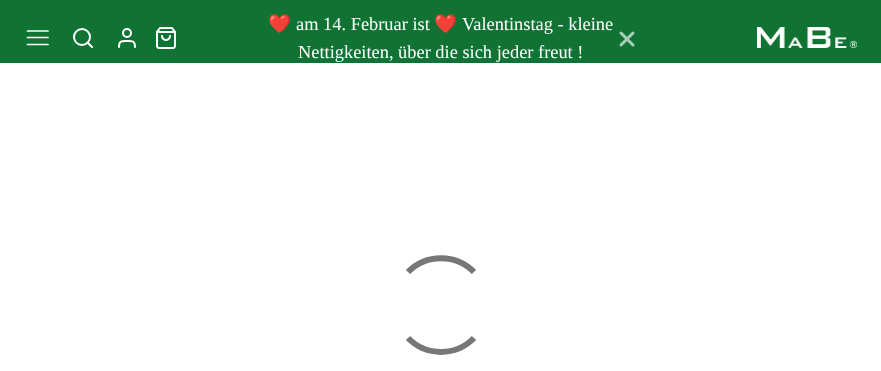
(async () => {
    const canvas = document.querySelector("canvas");
    canvas.width = 881;
    canvas.height = 371;
    const context = canvas.getContext("2d");
    context.miterLimit = 4;
    context.fontKerning = "normal";
    function write(s, x, y, font, color) {
        context.font = font;
        context.fillStyle = color;
        context.fillText(s, x, y);
    }
    function block(x, y, w, h, color) {
        context.fillStyle = color;
        context.fillRect(x, y, w, h);
    }
    async function photo(src, x, y, w, h) {
        const img = new Image();
        img.src = src;
        await img.decode();
        context.drawImage(img, x, y, w, h);
    }

    block(0, 0, 881, 371, "rgb(255, 255, 255)");
    block(0, 0, 881, 63, "rgb(16, 115, 51)");
    context.beginPath();
    context.moveTo(27.5, 37.5);
    context.lineTo(48, 37.5);
    context.moveTo(27.5, 31);
    context.lineTo(48, 31);
    context.moveTo(27.5, 44.5);
    context.lineTo(48, 44.5);
    context.strokeStyle = "rgb(255, 255, 255)";
    context.lineWidth = 1.7;
    context.lineCap = "round";
    context.lineJoin = "round";
    context.stroke();
    context.beginPath();
    context.arc(82, 37, 8, 0, Math.PI * 2);
    context.lineWidth = 2;
    context.stroke();
    context.beginPath();
    context.moveTo(92, 47);
    context.lineTo(87.5, 42.5);
    context.moveTo(135, 47);
    context.bezierCurveTo(135, 40.5, 132.5, 41, 127, 41);
    context.bezierCurveTo(121.5, 41, 119, 40.5, 119, 47);
    context.stroke();
    context.beginPath();
    context.arc(127, 33, 4, 0, Math.PI * 2);
    context.stroke();
    await photo("media/1.png", 156, 27, 20, 22);
    await photo("media/2.png", 757, 27, 100, 21);
    write("❤️", 268, 30, "18.4px Noto Color Emoji", "rgb(255, 255, 255)");
    write("am 14. Februar ist", 296, 30, "18.4px Liberation Serif", "rgb(255, 255, 255)");
    write("❤️", 434, 30, "18.4px Noto Color Emoji", "rgb(255, 255, 255)");
    write("Valentinstag - kleine", 462, 30, "18.4px Liberation Serif", "rgb(255, 255, 255)");
    write("Nettigkeiten, über die sich jeder freut !", 298, 58, "18.4px Liberation Serif", "rgb(255, 255, 255)");
    context.beginPath();
    context.moveTo(633, 33);
    context.lineTo(621, 45);
    context.moveTo(621, 33);
    context.lineTo(633, 45);
    context.strokeStyle = "rgb(169, 205, 182)";
    context.lineWidth = 3;
    context.stroke();
    context.beginPath();
    context.moveTo(408, 272);
    context.bezierCurveTo(426, 253.5, 456, 253.5, 474, 272);
    context.strokeStyle = "rgb(119, 119, 119)";
    context.lineWidth = 6;
    context.lineCap = "butt";
    context.lineJoin = "miter";
    context.stroke();
    context.beginPath();
    context.moveTo(474, 338);
    context.bezierCurveTo(456, 356.5, 426, 356.5, 408, 338);
    context.stroke();
})();
